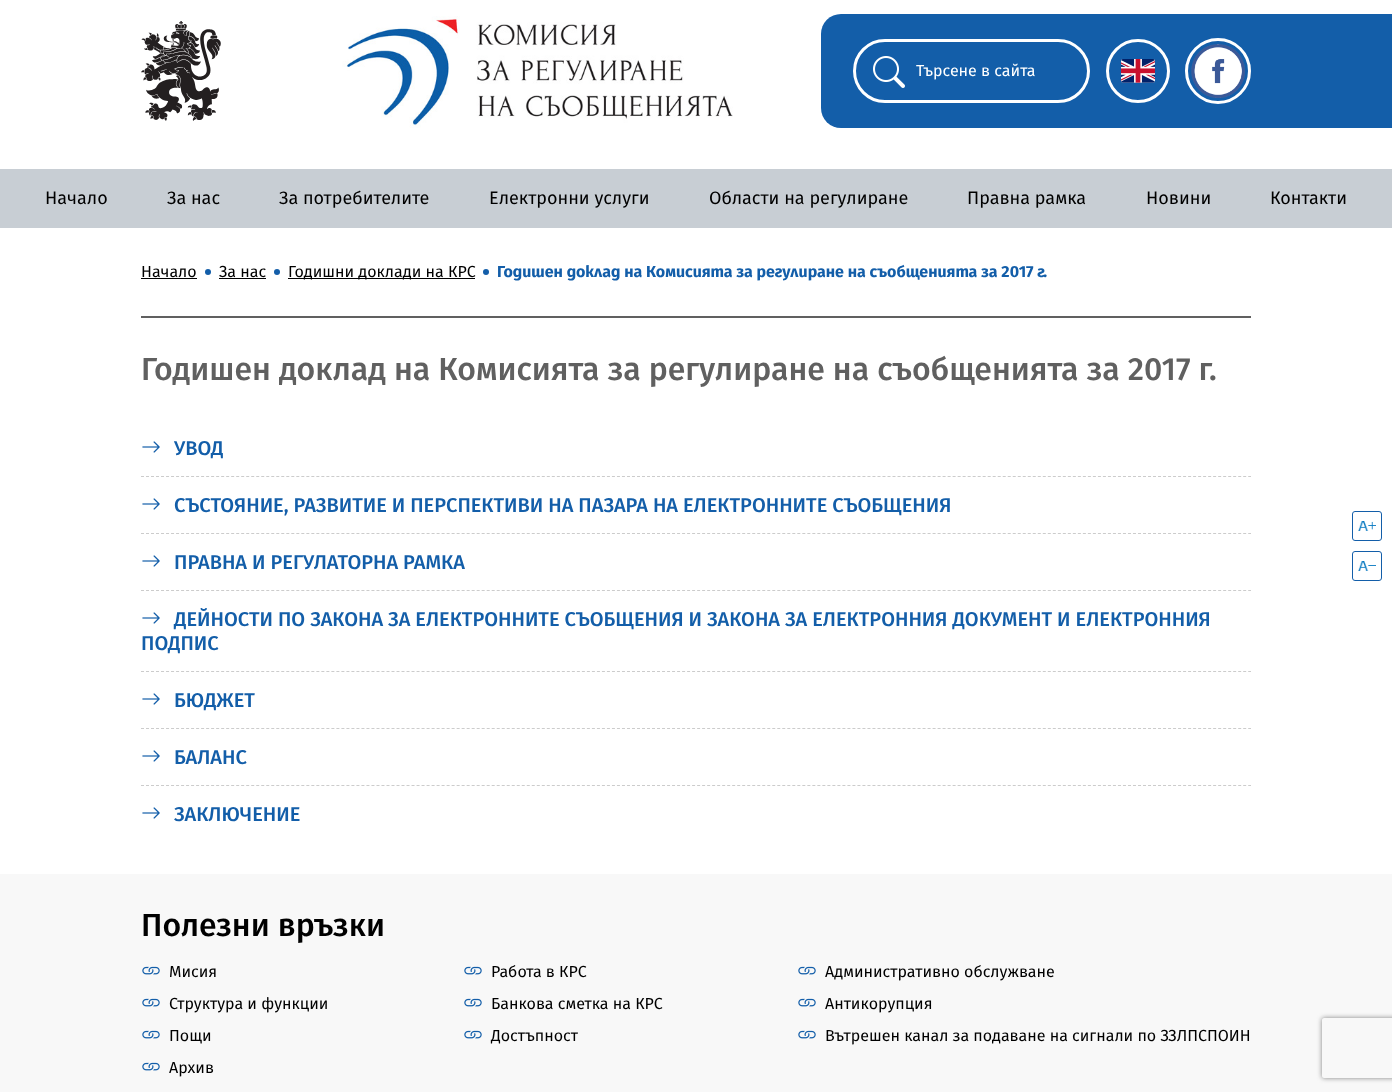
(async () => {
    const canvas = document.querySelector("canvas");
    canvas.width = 1392;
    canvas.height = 1092;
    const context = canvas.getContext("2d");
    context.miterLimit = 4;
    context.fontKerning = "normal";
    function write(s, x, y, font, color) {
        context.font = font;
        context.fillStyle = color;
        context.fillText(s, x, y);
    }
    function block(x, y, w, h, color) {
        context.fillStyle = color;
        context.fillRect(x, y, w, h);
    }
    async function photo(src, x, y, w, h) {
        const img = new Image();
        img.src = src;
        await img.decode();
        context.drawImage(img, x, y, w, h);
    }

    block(0, 0, 1392, 1092, "rgb(255, 255, 255)");
    await photo("media/1.png", 141, 21, 80, 100);
    await photo("media/2.png", 342, 16, 391, 112);
    context.fillStyle = "rgb(19, 94, 169)";
    context.beginPath();
    context.roundRect(821, 14, 430, 114, [20, 0, 0, 20]);
    context.fill();
    context.beginPath();
    context.roundRect(854.5, 40.5, 234, 61, 30.5);
    context.strokeStyle = "rgb(255, 255, 255)";
    context.lineWidth = 3;
    context.stroke();
    await photo("media/3.png", 873, 56, 32, 32);
    write("Търсене в сайта", 916, 76, "16px Fira Sans", "rgb(255, 255, 255)");
    context.beginPath();
    context.arc(1138, 71, 30.5, 0, Math.PI * 2);
    context.stroke();
    await photo("media/4.png", 1121, 59, 34, 24);
    context.beginPath();
    context.arc(1218, 71, 31.5, 0, Math.PI * 2);
    context.stroke();
    await photo("media/5.png", 1191, 44, 54, 54);
    block(1251, 14, 141, 114, "rgb(19, 94, 169)");
    block(0, 169, 1392, 59, "rgb(200, 206, 212)");
    write("Начало", 45, 204, "18px Fira Sans", "rgb(0, 0, 0)");
    write("За нас", 167, 204, "18px Fira Sans", "rgb(0, 0, 0)");
    write("За потребителите", 279, 204, "18px Fira Sans", "rgb(0, 0, 0)");
    write("Електронни услуги", 489, 204, "18px Fira Sans", "rgb(0, 0, 0)");
    write("Области на регулиране", 709, 204, "18px Fira Sans", "rgb(0, 0, 0)");
    write("Правна рамка", 967, 204, "18px Fira Sans", "rgb(0, 0, 0)");
    write("Новини", 1146, 204, "18px Fira Sans", "rgb(0, 0, 0)");
    write("Контакти", 1270, 204, "18px Fira Sans", "rgb(0, 0, 0)");
    write("Начало", 141, 277, "16px Fira Sans", "rgb(0, 0, 0)");
    block(141, 278, 56, 1, "rgb(0, 0, 0)");
    context.fillStyle = "rgb(19, 94, 169)";
    context.beginPath();
    context.arc(208, 272, 3, 0, Math.PI * 2);
    context.fill();
    write("За нас", 219, 277, "16px Fira Sans", "rgb(0, 0, 0)");
    block(219, 278, 47, 1, "rgb(0, 0, 0)");
    context.fillStyle = "rgb(19, 94, 169)";
    context.beginPath();
    context.arc(277, 272, 3, 0, Math.PI * 2);
    context.fill();
    block(288, 278, 187, 1, "rgb(0, 0, 0)");
    write("Годишни доклади на КРС", 288, 277, "16px Fira Sans", "rgb(0, 0, 0)");
    context.fillStyle = "rgb(19, 94, 169)";
    context.beginPath();
    context.arc(486, 272, 3, 0, Math.PI * 2);
    context.fill();
    write("Годишен доклад на Комисията за регулиране на съобщенията за 2017 г.", 497, 277, "bold 16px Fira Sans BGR", "rgb(19, 94, 169)");
    block(141, 316, 1110, 2, "rgb(96, 96, 96)");
    write("Годишен доклад на Комисията за регулиране на съобщенията за 2017 г.", 141, 380, "500 32px Fira Sans", "rgb(96, 96, 96)");
    context.beginPath();
    context.moveTo(141, 476.5);
    context.lineTo(1251, 476.5);
    context.strokeStyle = "rgb(204, 204, 204)";
    context.lineWidth = 1;
    context.setLineDash([3, 2.01]);
    context.stroke();
    await photo("media/6.png", 142, 441, 18, 12);
    write("УВОД", 174, 455, "500 20px Fira Sans", "rgb(19, 94, 169)");
    context.beginPath();
    context.moveTo(141, 533.5);
    context.lineTo(1251, 533.5);
    context.stroke();
    await photo("media/6.png", 142, 498, 18, 12);
    write("СЪСТОЯНИЕ, РАЗВИТИЕ И ПЕРСПЕКТИВИ НА ПАЗАРА НА ЕЛЕКТРОННИТЕ СЪОБЩЕНИЯ", 174, 512, "500 20px Fira Sans", "rgb(19, 94, 169)");
    context.beginPath();
    context.moveTo(141, 590.5);
    context.lineTo(1251, 590.5);
    context.stroke();
    await photo("media/6.png", 142, 555, 18, 12);
    write("ПРАВНА И РЕГУЛАТОРНА РАМКА", 174, 569, "500 20px Fira Sans", "rgb(19, 94, 169)");
    context.beginPath();
    context.moveTo(141, 671.5);
    context.lineTo(1251, 671.5);
    context.stroke();
    await photo("media/6.png", 142, 612, 18, 12);
    write("ДЕЙНОСТИ ПО ЗАКОНА ЗА ЕЛЕКТРОННИТЕ СЪОБЩЕНИЯ И ЗАКОНА ЗА ЕЛЕКТРОННИЯ ДОКУМЕНТ И ЕЛЕКТРОННИЯ", 174, 626, "500 20px Fira Sans", "rgb(19, 94, 169)");
    write("ПОДПИС", 141, 650, "500 20px Fira Sans", "rgb(19, 94, 169)");
    context.beginPath();
    context.moveTo(141, 728.5);
    context.lineTo(1251, 728.5);
    context.stroke();
    await photo("media/6.png", 142, 693, 18, 12);
    write("БЮДЖЕТ", 174, 707, "500 20px Fira Sans", "rgb(19, 94, 169)");
    context.beginPath();
    context.moveTo(141, 785.5);
    context.lineTo(1251, 785.5);
    context.stroke();
    await photo("media/6.png", 142, 750, 18, 12);
    write("БАЛАНС", 174, 764, "500 20px Fira Sans", "rgb(19, 94, 169)");
    await photo("media/6.png", 142, 807, 18, 12);
    write("ЗАКЛЮЧЕНИЕ", 174, 821, "500 20px Fira Sans", "rgb(19, 94, 169)");
    context.beginPath();
    context.roundRect(1352.5, 511.5, 29, 29, 2.5);
    context.strokeStyle = "rgb(19, 94, 169)";
    context.setLineDash([]);
    context.stroke();
    await photo("media/7.png", 1358, 521, 18, 10);
    context.beginPath();
    context.roundRect(1352.5, 551.5, 29, 29, 2.5);
    context.stroke();
    await photo("media/8.png", 1358, 561, 18, 10);
    block(0, 874, 1392, 218, "rgb(248, 248, 248)");
    write("Полезни връзки", 141, 936, "500 32px Fira Sans", "rgb(0, 0, 0)");
    await photo("media/9.png", 142, 966, 18, 9);
    write("Мисия", 169, 977, "16px Fira Sans", "rgb(0, 0, 0)");
    await photo("media/9.png", 142, 998, 18, 9);
    write("Структура и функции", 169, 1009, "16px Fira Sans", "rgb(0, 0, 0)");
    await photo("media/9.png", 142, 1030, 18, 9);
    write("Пощи", 169, 1041, "16px Fira Sans", "rgb(0, 0, 0)");
    await photo("media/9.png", 142, 1062, 18, 9);
    write("Архив", 169, 1073, "16px Fira Sans", "rgb(0, 0, 0)");
    await photo("media/9.png", 464, 966, 18, 9);
    write("Работа в КРС", 491, 977, "16px Fira Sans", "rgb(0, 0, 0)");
    await photo("media/9.png", 464, 998, 18, 9);
    write("Банкова сметка на КРС", 491, 1009, "16px Fira Sans", "rgb(0, 0, 0)");
    await photo("media/9.png", 464, 1030, 18, 9);
    write("Достъпност", 491, 1041, "16px Fira Sans", "rgb(0, 0, 0)");
    await photo("media/9.png", 798, 966, 18, 9);
    write("Административно обслужване", 825, 977, "16px Fira Sans", "rgb(0, 0, 0)");
    await photo("media/9.png", 798, 998, 18, 9);
    write("Антикорупция", 825, 1009, "16px Fira Sans", "rgb(0, 0, 0)");
    await photo("media/9.png", 798, 1030, 18, 9);
    write("Вътрешен канал за подаване на сигнали по ЗЗЛПСПОИН", 825, 1041, "16px Fira Sans", "rgb(0, 0, 0)");
    context.save();
    context.beginPath();
    context.moveTo(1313, 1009);
    context.lineTo(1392, 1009);
    context.lineTo(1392, 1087);
    context.lineTo(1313, 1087);
    context.closePath();
    context.moveTo(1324, 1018);
    context.lineTo(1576, 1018);
    context.bezierCurveTo(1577, 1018, 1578, 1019, 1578, 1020);
    context.lineTo(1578, 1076);
    context.bezierCurveTo(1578, 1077, 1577, 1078, 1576, 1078);
    context.lineTo(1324, 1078);
    context.bezierCurveTo(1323, 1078, 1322, 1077, 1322, 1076);
    context.lineTo(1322, 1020);
    context.bezierCurveTo(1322, 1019, 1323, 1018, 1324, 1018);
    context.closePath();
    context.clip("evenodd");
    context.fillStyle = "rgb(128, 128, 128)";
    context.filter = "blur(2.5px)";
    context.beginPath();
    context.roundRect(1322, 1018, 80, 60, 2);
    context.fill();
    context.filter = "none";
    context.restore();
})();
